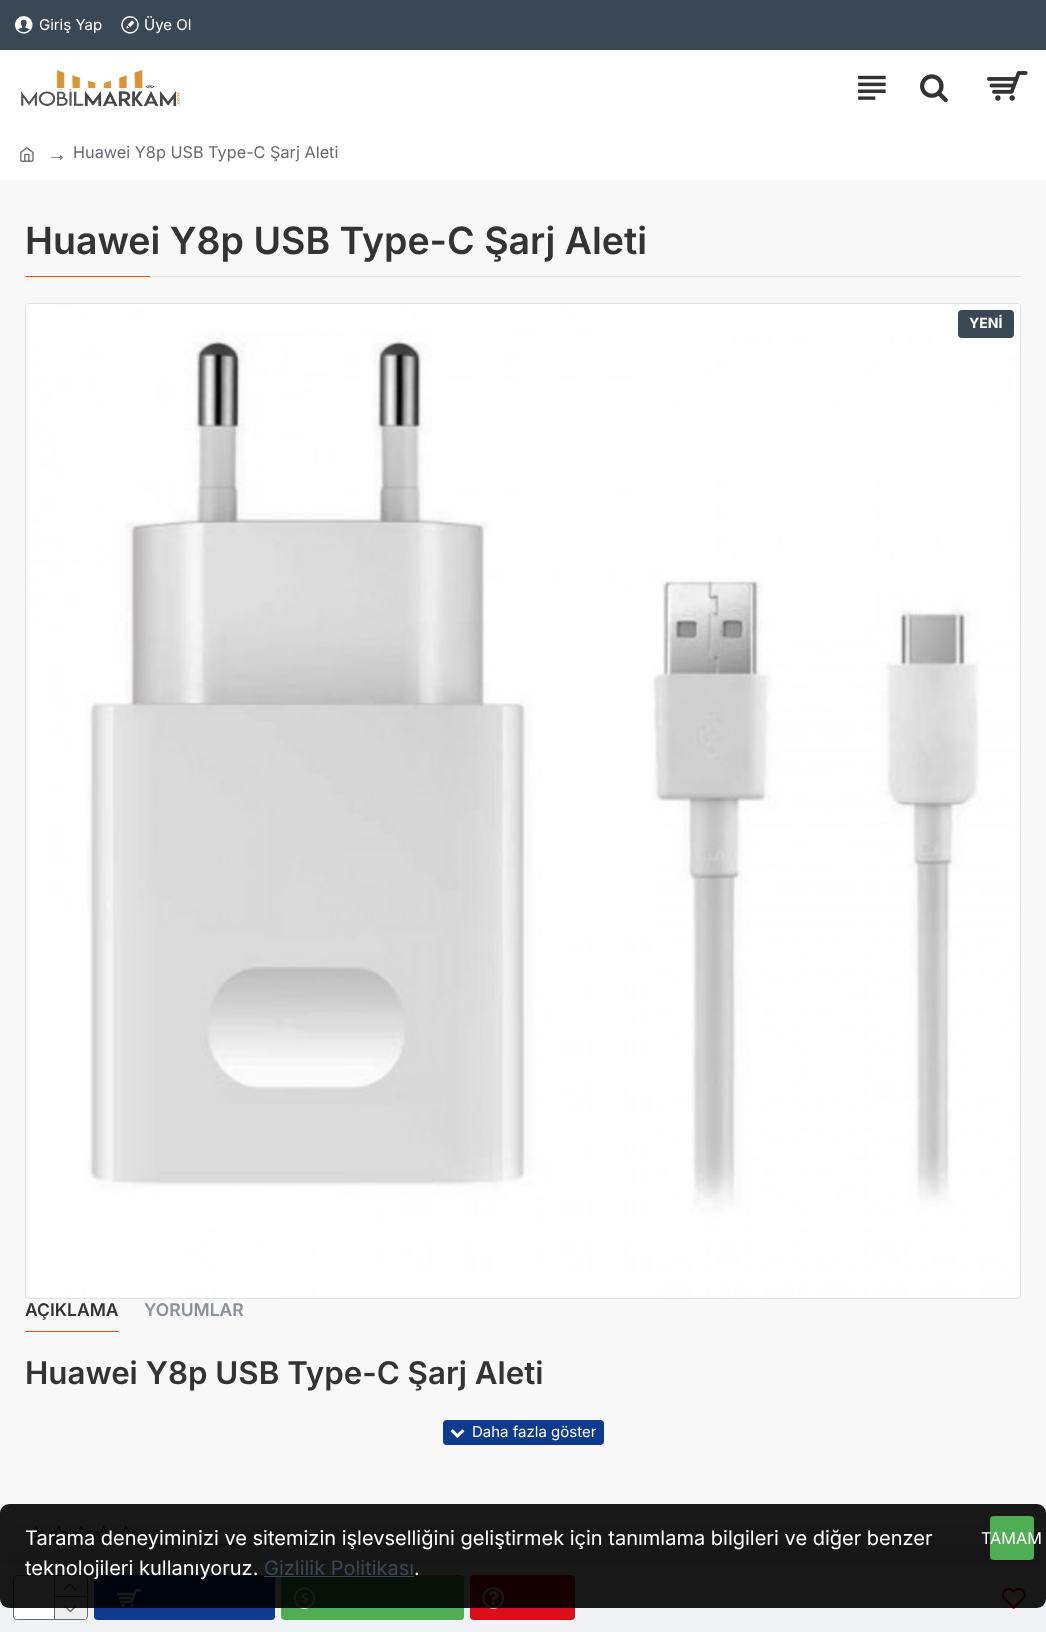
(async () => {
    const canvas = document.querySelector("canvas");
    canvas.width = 1046;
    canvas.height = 1632;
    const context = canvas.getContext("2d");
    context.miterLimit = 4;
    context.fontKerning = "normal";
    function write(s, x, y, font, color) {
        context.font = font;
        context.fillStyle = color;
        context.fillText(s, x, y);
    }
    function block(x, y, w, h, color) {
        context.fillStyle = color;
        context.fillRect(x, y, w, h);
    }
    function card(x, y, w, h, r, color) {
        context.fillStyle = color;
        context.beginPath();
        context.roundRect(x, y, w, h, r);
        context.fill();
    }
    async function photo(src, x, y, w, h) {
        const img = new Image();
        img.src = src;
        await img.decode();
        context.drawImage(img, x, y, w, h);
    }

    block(0, 0, 1046, 1632, "rgb(248, 248, 248)");
    block(0, 0, 1046, 50, "rgb(58, 71, 84)");
    await photo("media/1.png", 15, 16, 18, 18);
    write("Giriş Yap", 39, 30, "15px Inter", "rgb(255, 255, 255)");
    await photo("media/2.png", 121, 16, 18, 18);
    write("Üye Ol", 144, 30, "15px Inter", "rgb(255, 255, 255)");
    block(0, 50, 1046, 130, "rgb(255, 255, 255)");
    await photo("media/3.png", 21, 70, 159, 37);
    await photo("media/4.png", 858, 75, 28, 25);
    await photo("media/5.png", 920, 74, 28, 29);
    await photo("media/6.png", 987, 71, 41, 30);
    await photo("media/7.png", 20, 147, 14, 15);
    write("→", 47, 161, "20px Liberation Serif", "rgb(105, 105, 115)");
    write("Huawei Y8p USB Type-C Şarj Aleti", 73, 158, "16.25px Inter", "rgb(105, 105, 115)");
    block(150, 276, 871, 1, "rgb(226, 226, 226)");
    write("Huawei Y8p USB Type-C Şarj Aleti", 25, 254, "600 37.5px Inter", "rgb(51, 51, 51)");
    block(25, 276, 125, 1, "rgb(255, 73, 0)");
    context.beginPath();
    context.roundRect(25.5, 303.5, 995, 995, 3.5);
    context.strokeStyle = "rgb(226, 226, 226)";
    context.stroke();
    await photo("media/8.png", 26, 304, 994, 994);
    card(958, 310, 56, 28, 4, "rgb(58, 71, 84)");
    write("YENİ", 969, 328, "bold 14px Inter", "rgb(255, 255, 255)");
    block(25, 1331, 94, 1, "rgb(255, 73, 0)");
    write("AÇIKLAMA", 25, 1316, "600 17.5px Inter", "rgb(51, 51, 51)");
    write("YORUMLAR", 144, 1316, "600 17.5px Inter", "rgb(139, 145, 152)");
    write("Huawei Y8p USB Type-C Şarj Aleti", 25, 1384, "600 31.25px Inter", "rgb(51, 51, 51)");
    card(443, 1420, 161, 25, 4, "rgb(15, 58, 141)");
    await photo("media/9.png", 450, 1429, 15, 9);
    write("Daha fazla göster", 472, 1437, "15px Inter", "rgb(255, 255, 255)");
    await photo("media/16.png", 27, 1525, 18, 18);
    await photo("media/17.png", 50, 1525, 18, 18);
    await photo("media/16.png", 72, 1525, 18, 18);
    await photo("media/17.png", 95, 1525, 18, 18);
    await photo("media/16.png", 117, 1525, 18, 18);
    block(146, 1544, 147, 1, "rgb(58, 71, 84)");
    block(316, 1544, 90, 1, "rgb(58, 71, 84)");
    context.fillStyle = "rgba(0, 0, 0, 0.15)";
    context.filter = "blur(19px)";
    context.beginPath();
    context.rect(6, 1555, 1034, 59);
    context.fill();
    context.filter = "none";
    block(0, 1563, 1046, 69, "rgb(240, 242, 245)");
    block(0, 1561, 1046, 1, "rgb(226, 226, 226)");
    context.beginPath();
    context.roundRect(13.5, 1575.5, 74, 44, 3.5);
    context.strokeStyle = "rgb(105, 105, 115)";
    context.stroke();
    card(14, 1576, 72, 43, 4, "rgb(255, 255, 255)");
    block(54, 1576, 1, 43, "rgb(105, 105, 115)");
    block(55, 1576, 31, 20, "rgb(238, 238, 238)");
    block(55, 1596, 31, 1, "rgb(105, 105, 115)");
    await photo("media/10.png", 63, 1583, 13, 8);
    block(55, 1598, 31, 21, "rgb(238, 238, 238)");
    await photo("media/11.png", 64, 1605, 13, 8);
    card(94, 1575, 181, 45, 4, "rgb(15, 58, 141)");
    await photo("media/12.png", 116, 1589, 26, 19);
    card(281, 1575, 183, 45, 4, "rgb(80, 173, 85)");
    await photo("media/13.png", 293, 1587, 22, 22);
    card(470, 1575, 105, 45, 4, "rgb(221, 14, 28)");
    await photo("media/14.png", 482, 1587, 22, 22);
    await photo("media/15.png", 1001, 1587, 25, 22);
    card(0, 1504, 1046, 104, 9, "rgba(0, 0, 0, 0.9)");
    write("Tarama deneyiminizi ve sitemizin işlevselliğini geliştirmek için tanımlama bilgileri ve diğer benzer", 25, 1545, "20px Inter", "rgb(255, 255, 255)");
    write("teknolojileri kullanıyoruz.", 25, 1575, "20px Inter", "rgb(255, 255, 255)");
    write("Gizlilik Politikası", 264, 1575, "20px Inter", "rgb(58, 71, 84)");
    block(264, 1576, 150, 1, "rgb(58, 71, 84)");
    write(".", 414, 1575, "20px Inter", "rgb(255, 255, 255)");
    card(990, 1516, 44, 44, 4, "rgb(80, 173, 85)");
    write("TAMAM", 981, 1544, "16.25px Inter", "rgb(255, 255, 255)");
})();
